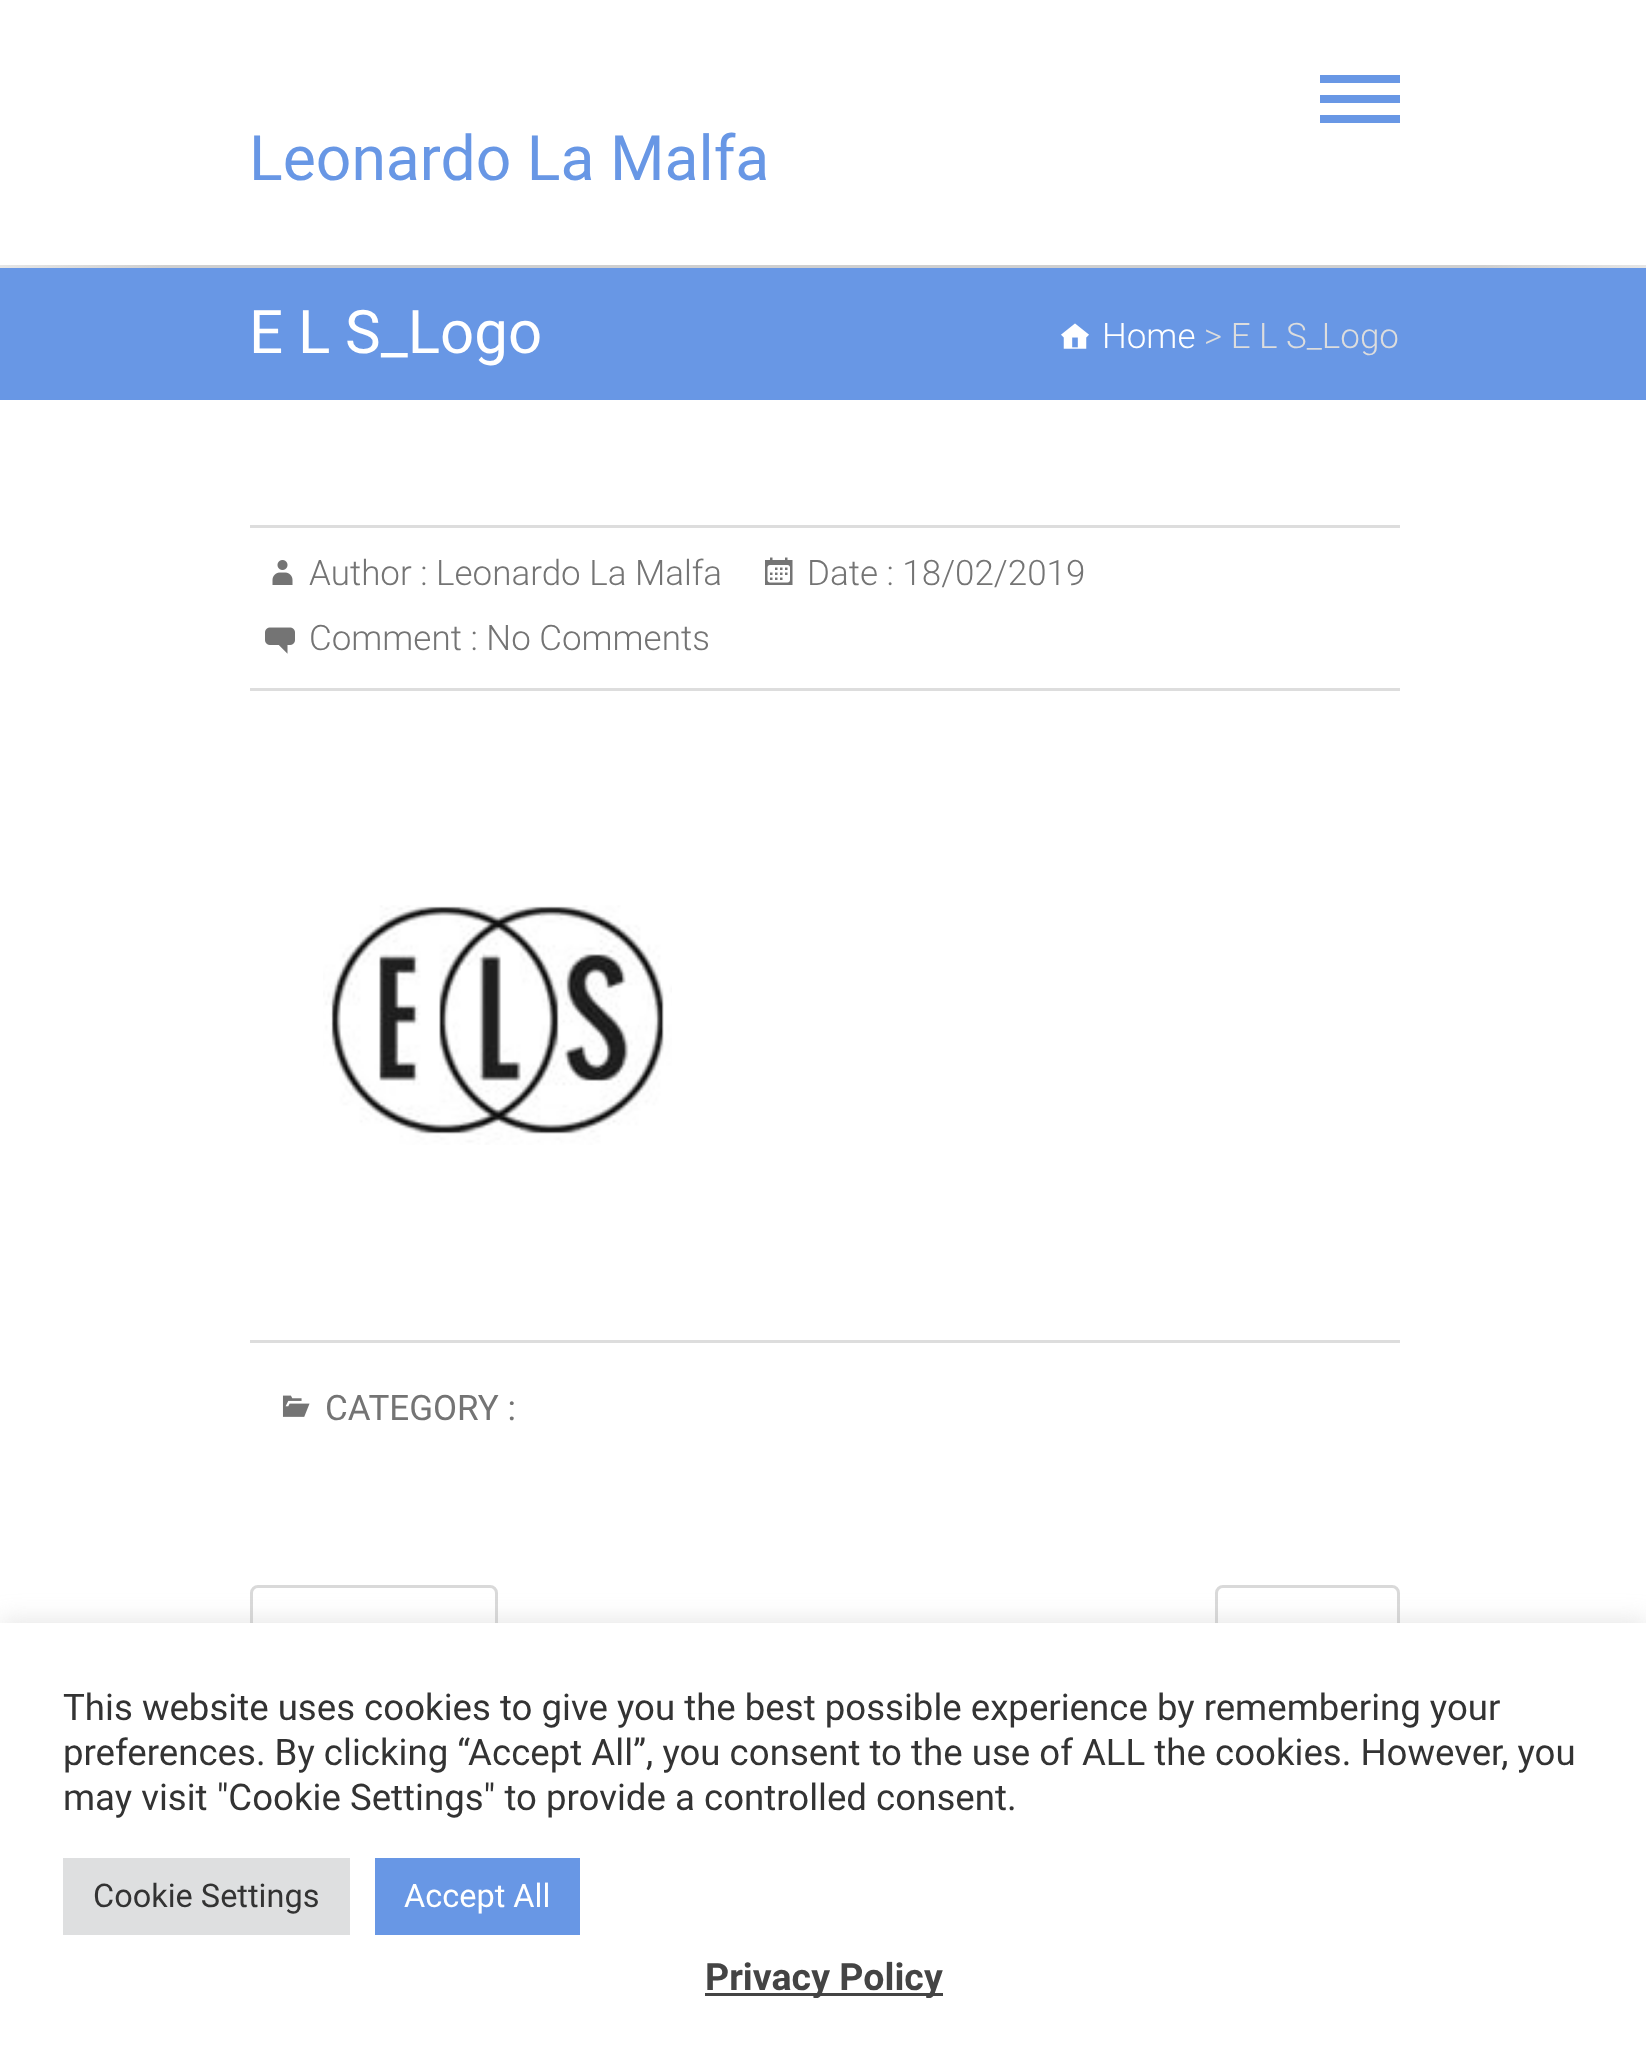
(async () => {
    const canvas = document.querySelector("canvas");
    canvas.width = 1646;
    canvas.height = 2066;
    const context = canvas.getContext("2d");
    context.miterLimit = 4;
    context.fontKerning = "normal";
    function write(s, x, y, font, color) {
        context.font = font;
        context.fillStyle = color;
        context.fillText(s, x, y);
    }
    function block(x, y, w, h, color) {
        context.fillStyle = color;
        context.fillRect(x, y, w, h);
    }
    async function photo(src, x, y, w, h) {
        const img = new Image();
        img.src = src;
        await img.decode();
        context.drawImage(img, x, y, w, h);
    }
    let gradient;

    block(0, 0, 1646, 2066, "rgb(255, 255, 255)");
    block(1320, 75, 80, 8, "rgb(104, 151, 229)");
    block(1320, 95, 80, 8, "rgb(104, 151, 229)");
    block(1320, 115, 80, 8, "rgb(104, 151, 229)");
    write("Leonardo La Malfa", 249, 180, "62.5px Roboto", "rgb(104, 151, 229)");
    gradient = context.createLinearGradient(0, 266, 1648, 266);
    gradient.addColorStop(0, "rgb(230, 230, 230)");
    gradient.addColorStop(0.1, "rgb(207, 207, 207)");
    gradient.addColorStop(0.9, "rgb(207, 207, 207)");
    gradient.addColorStop(1, "rgb(230, 230, 230)");
    context.fillStyle = gradient;
    context.fillRect(0, 265, 1646, 3);
    block(0, 268, 1646, 132, "rgb(104, 151, 229)");
    write("E L S_Logo", 249, 353, "60px Roboto", "rgb(255, 255, 255)");
    await photo("media/1.png", 1061, 323, 28, 26);
    write("Home", 1102, 348, "300 35px Roboto", "rgb(255, 255, 255)");
    write("> E L S_Logo", 1204, 348, "300 35px Roboto", "rgb(221, 221, 221)");
    block(250, 525, 1150, 3, "rgb(221, 221, 221)");
    block(250, 688, 1150, 3, "rgb(221, 221, 221)");
    await photo("media/2.png", 272, 560, 21, 25);
    write("Author : Leonardo La Malfa", 309, 585, "300 35px Roboto", "rgb(116, 116, 116)");
    await photo("media/3.png", 765, 557, 28, 28);
    write("Date : 18/02/2019", 807, 585, "300 35px Roboto", "rgb(116, 116, 116)");
    await photo("media/4.png", 265, 627, 30, 27);
    write("Comment : No Comments", 309, 650, "300 35px Roboto", "rgb(116, 116, 116)");
    await photo("media/5.png", 323, 905, 349, 240);
    block(250, 1340, 1150, 3, "rgb(221, 221, 221)");
    await photo("media/6.png", 282, 1395, 28, 22);
    write("CATEGORY :", 325, 1420, "35px Roboto", "rgb(116, 116, 116)");
    context.beginPath();
    context.roundRect(251.5, 1586.5, 245, 77, 6.5);
    context.strokeStyle = "rgb(217, 217, 217)";
    context.lineWidth = 3;
    context.stroke();
    context.beginPath();
    context.roundRect(1216.5, 1586.5, 182, 77, 6.5);
    context.stroke();
    context.fillStyle = "rgba(172, 171, 171, 0.3)";
    context.filter = "blur(12.5px)";
    context.beginPath();
    context.rect(0, 1620, 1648, 445);
    context.fill();
    context.filter = "none";
    block(0, 1623, 1646, 443, "rgb(255, 255, 255)");
    write("This website uses cookies to give you the best possible experience by remembering your", 63, 1720, "36.65px Roboto", "rgb(51, 51, 51)");
    write("preferences. By clicking “Accept All”, you consent to the use of ALL the cookies. However, you", 63, 1765, "36.65px Roboto", "rgb(51, 51, 51)");
    write("may visit \"Cookie Settings\" to provide a controlled consent.", 63, 1810, "36.65px Roboto", "rgb(51, 51, 51)");
    block(63, 1858, 287, 77, "rgb(222, 223, 224)");
    write("Cookie Settings", 93, 1907, "32.5px Roboto", "rgb(51, 51, 51)");
    block(375, 1858, 205, 77, "rgb(104, 151, 229)");
    write("Accept All", 404, 1907, "32.5px Roboto", "rgb(255, 255, 255)");
    block(705, 1993, 238, 3, "rgb(68, 68, 68)");
    write("Privacy Policy", 705, 1990, "bold 37.5px Roboto", "rgb(68, 68, 68)");
})();
